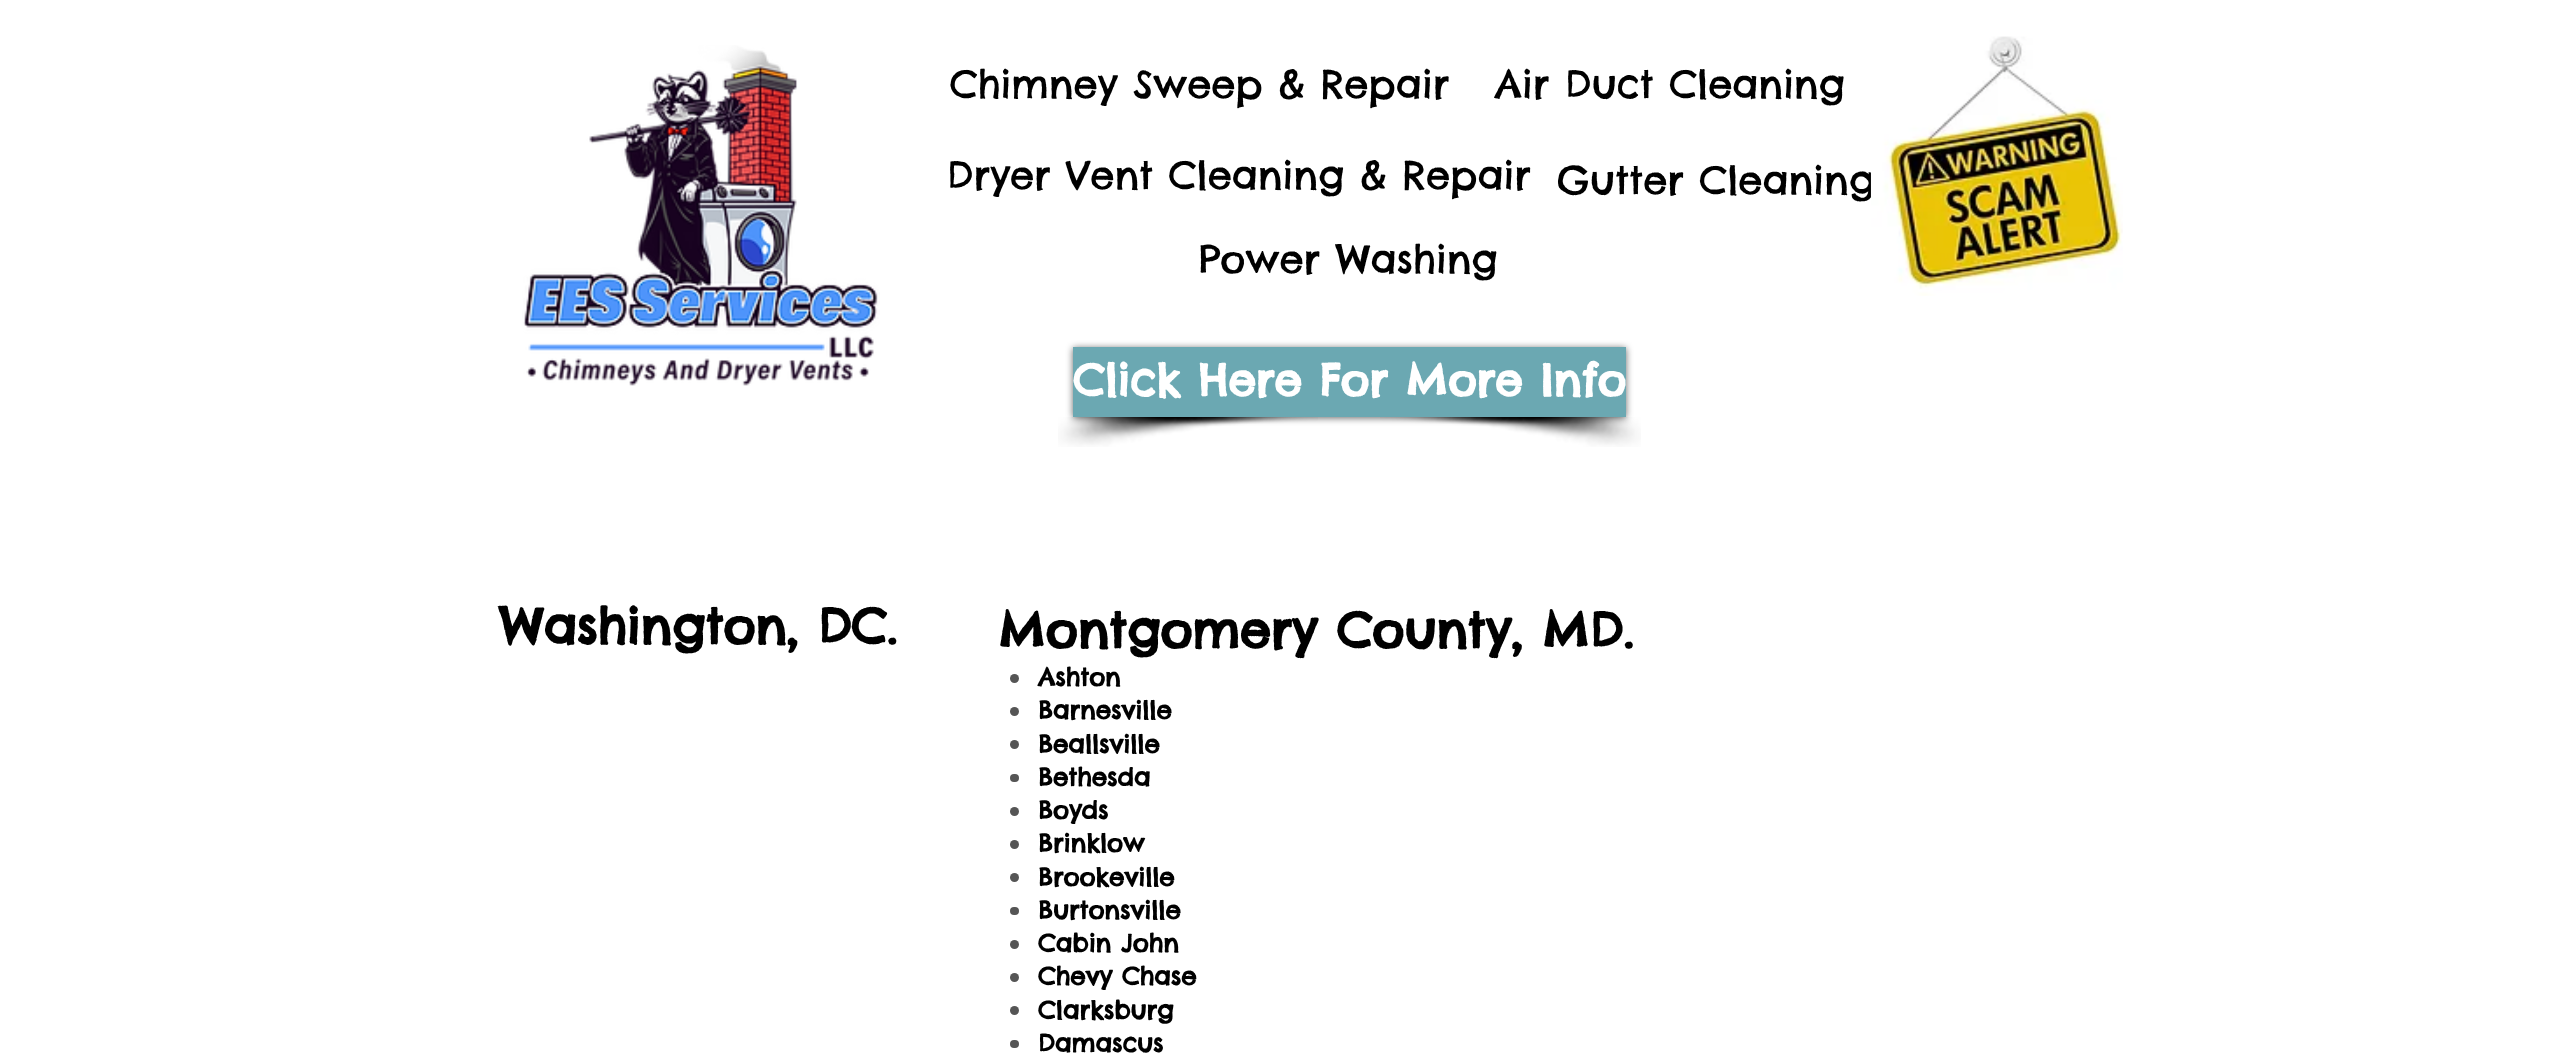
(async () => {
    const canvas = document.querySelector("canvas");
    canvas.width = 2572;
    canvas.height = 1054;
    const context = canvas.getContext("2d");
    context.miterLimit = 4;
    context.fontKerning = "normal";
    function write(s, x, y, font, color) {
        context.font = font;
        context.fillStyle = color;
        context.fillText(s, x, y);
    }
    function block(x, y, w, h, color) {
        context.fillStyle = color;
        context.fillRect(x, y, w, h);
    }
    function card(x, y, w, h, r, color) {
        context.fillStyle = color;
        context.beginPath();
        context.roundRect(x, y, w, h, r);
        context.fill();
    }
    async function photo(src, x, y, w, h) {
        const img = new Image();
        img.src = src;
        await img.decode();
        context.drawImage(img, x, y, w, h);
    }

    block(0, 0, 2572, 1054, "rgb(255, 255, 255)");
    await photo("media/1.png", 522, 45, 358, 341);
    write("Chimney Sweep & Repair", 950, 98, "38.5px Chelsea Market", "rgb(0, 0, 0)");
    write("Air Duct Cleaning", 1495, 98, "38.5px Chelsea Market", "rgb(0, 0, 0)");
    write("Gutter Cleaning", 1557, 194, "38.5px Chelsea Market", "rgb(0, 0, 0)");
    await photo("media/2.png", 1870, 36, 253, 260);
    write("Dryer Vent Cleaning & Repair", 947, 189, "38.5px Chelsea Market", "rgb(0, 0, 0)");
    write("Power Washing", 1199, 273, "38.5px Chelsea Market", "rgb(0, 0, 0)");
    await photo("media/3.png", 1058, 417, 260, 30);
    await photo("media/4.png", 1380, 417, 261, 30);
    context.fillStyle = "rgba(0, 0, 0, 0.6)";
    context.filter = "blur(3.5px)";
    context.beginPath();
    context.rect(1073, 348, 553, 70);
    context.fill();
    context.filter = "none";
    block(1073, 347, 553, 70, "rgb(107, 168, 178)");
    write("Click Here For More Info", 1073, 396, "bold 43.75px Chelsea Market", "rgb(255, 255, 255)");
    write("Washington, DC.", 499, 644, "bold 49px Chelsea Market", "rgb(0, 0, 0)");
    write("Montgomery County, MD.", 998, 648, "bold 49px Chelsea Market", "rgb(0, 0, 0)");
    context.fillStyle = "rgb(85, 85, 85)";
    context.beginPath();
    context.arc(1014.5, 678.5, 4.5, 0, Math.PI * 2);
    context.fill();
    write("Ashton", 1038, 686, "bold 24.5px Chelsea Market", "rgb(0, 0, 0)");
    context.fillStyle = "rgb(85, 85, 85)";
    context.beginPath();
    context.arc(1014.5, 711.5, 4.5, 0, Math.PI * 2);
    context.fill();
    write("Barnesville", 1038, 719, "bold 24.5px Chelsea Market", "rgb(0, 0, 0)");
    context.fillStyle = "rgb(85, 85, 85)";
    context.beginPath();
    context.arc(1014.5, 744.5, 4.5, 0, Math.PI * 2);
    context.fill();
    write("Beallsville", 1038, 753, "bold 24.5px Chelsea Market", "rgb(0, 0, 0)");
    card(1010, 774, 9, 8, 4, "rgb(85, 85, 85)");
    write("Bethesda", 1038, 786, "bold 24.5px Chelsea Market", "rgb(0, 0, 0)");
    context.fillStyle = "rgb(85, 85, 85)";
    context.beginPath();
    context.arc(1014.5, 811.5, 4.5, 0, Math.PI * 2);
    context.fill();
    write("Boyds", 1038, 819, "bold 24.5px Chelsea Market", "rgb(0, 0, 0)");
    context.fillStyle = "rgb(85, 85, 85)";
    context.beginPath();
    context.arc(1014.5, 844.5, 4.5, 0, Math.PI * 2);
    context.fill();
    write("Brinklow", 1038, 852, "bold 24.5px Chelsea Market", "rgb(0, 0, 0)");
    context.fillStyle = "rgb(85, 85, 85)";
    context.beginPath();
    context.arc(1014.5, 877.5, 4.5, 0, Math.PI * 2);
    context.fill();
    write("Brookeville", 1038, 886, "bold 24.5px Chelsea Market", "rgb(0, 0, 0)");
    card(1010, 907, 9, 8, 4, "rgb(85, 85, 85)");
    write("Burtonsville", 1038, 919, "bold 24.5px Chelsea Market", "rgb(0, 0, 0)");
    context.fillStyle = "rgb(85, 85, 85)";
    context.beginPath();
    context.arc(1014.5, 944.5, 4.5, 0, Math.PI * 2);
    context.fill();
    write("Cabin John", 1038, 952, "bold 24.5px Chelsea Market", "rgb(0, 0, 0)");
    context.fillStyle = "rgb(85, 85, 85)";
    context.beginPath();
    context.arc(1014.5, 977.5, 4.5, 0, Math.PI * 2);
    context.fill();
    write("Chevy Chase", 1038, 985, "bold 24.5px Chelsea Market", "rgb(0, 0, 0)");
    context.fillStyle = "rgb(85, 85, 85)";
    context.beginPath();
    context.arc(1014.5, 1010.5, 4.5, 0, Math.PI * 2);
    context.fill();
    write("Clarksburg", 1038, 1019, "bold 24.5px Chelsea Market", "rgb(0, 0, 0)");
    card(1010, 1040, 9, 8, 4, "rgb(85, 85, 85)");
    write("Damascus", 1038, 1052, "bold 24.5px Chelsea Market", "rgb(0, 0, 0)");
})();
